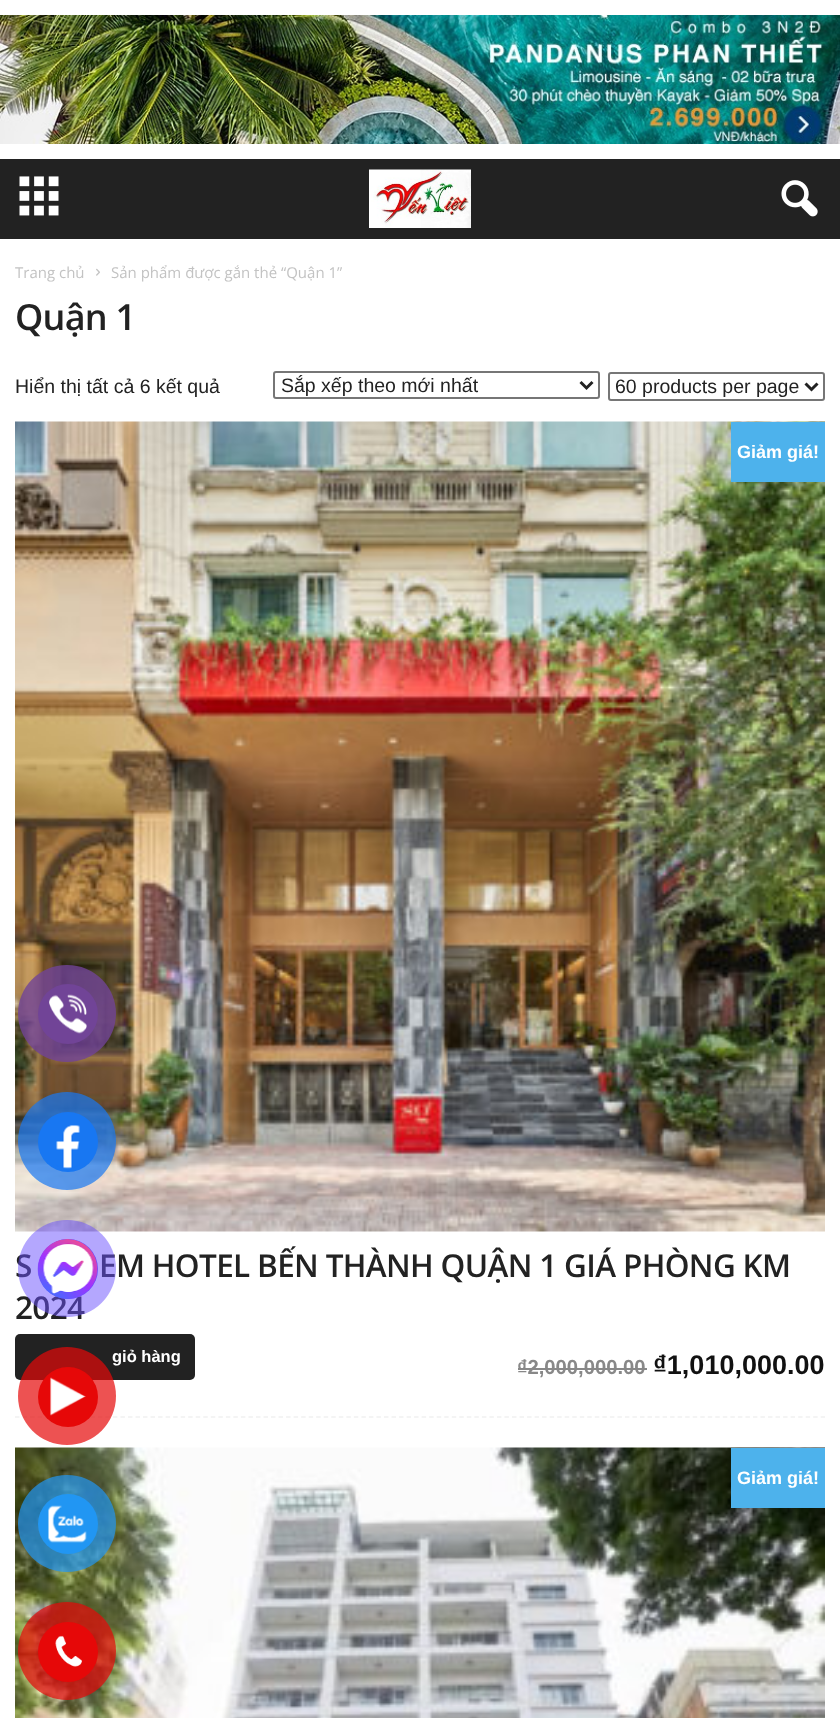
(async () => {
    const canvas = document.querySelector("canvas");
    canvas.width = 840;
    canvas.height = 1718;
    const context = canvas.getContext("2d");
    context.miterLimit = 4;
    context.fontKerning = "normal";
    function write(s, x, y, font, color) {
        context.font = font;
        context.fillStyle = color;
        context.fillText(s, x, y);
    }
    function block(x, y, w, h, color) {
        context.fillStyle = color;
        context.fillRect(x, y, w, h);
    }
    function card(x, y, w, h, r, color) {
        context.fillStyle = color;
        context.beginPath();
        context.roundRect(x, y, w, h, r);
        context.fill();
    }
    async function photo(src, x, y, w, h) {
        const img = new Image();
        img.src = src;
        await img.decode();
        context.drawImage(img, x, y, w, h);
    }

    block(0, 0, 840, 1718, "rgb(255, 255, 255)");
    await photo("media/1.png", 0, 15, 840, 129);
    block(0, 159, 840, 80, "rgb(34, 34, 34)");
    await photo("media/2.png", 19, 176, 40, 40);
    await photo("media/3.png", 369, 169, 102, 59);
    await photo("media/4.png", 781, 180, 37, 37);
    write("Trang chủ", 15, 278, "15px Open Sans", "rgb(195, 195, 195)");
    await photo("media/5.png", 96, 268, 4, 8);
    write("Sản phẩm được gắn thẻ “Quận 1”", 111, 278, "15px Open Sans", "rgb(195, 195, 195)");
    context.letterSpacing = "-0.75px";
    write("Quận 1", 15, 330, "600 36px Open Sans", "rgb(34, 34, 34)");
    context.letterSpacing = "0px";
    write("Hiển thị tất cả 6 kết quả", 15, 393, "19.5px Liberation Sans", "rgb(34, 34, 34)");
    context.beginPath();
    context.roundRect(274, 372, 325, 26, 2);
    context.strokeStyle = "rgb(118, 118, 118)";
    context.lineWidth = 2;
    context.stroke();
    context.beginPath();
    context.moveTo(580.5, 382);
    context.lineTo(586.5, 388);
    context.lineTo(592.5, 382);
    context.strokeStyle = "rgb(34, 34, 34)";
    context.lineWidth = 3;
    context.stroke();
    write("Sắp xếp theo mới nhất", 281, 392, "19.5px Liberation Sans", "rgb(34, 34, 34)");
    context.beginPath();
    context.roundRect(609, 373, 215, 27, 2);
    context.strokeStyle = "rgb(118, 118, 118)";
    context.lineWidth = 2;
    context.stroke();
    context.beginPath();
    context.moveTo(805.5, 383.5);
    context.lineTo(811.5, 389.5);
    context.lineTo(817.5, 383.5);
    context.strokeStyle = "rgb(34, 34, 34)";
    context.lineWidth = 3;
    context.stroke();
    write("60 products per page", 615, 393, "19.5px Liberation Sans", "rgb(34, 34, 34)");
    context.beginPath();
    context.moveTo(15, 1417);
    context.lineTo(825, 1417);
    context.strokeStyle = "rgb(241, 241, 241)";
    context.lineWidth = 1.5;
    context.setLineDash([4.5, 3.03]);
    context.stroke();
    await photo("media/6.png", 15, 421, 810, 811);
    block(731, 422, 94, 60, "rgb(77, 178, 236)");
    write("Giảm giá!", 737, 458, "bold 18px Liberation Sans", "rgb(255, 255, 255)");
    context.letterSpacing = "-0.65px";
    write("S", 15, 1277, "600 31.5px Open Sans", "rgb(34, 34, 34)");
    write("EM HOTEL BẾN THÀNH QUẬN 1 GIÁ PHÒNG KM", 99, 1277, "600 31.5px Open Sans", "rgb(34, 34, 34)");
    write("2024", 15, 1319, "600 31.5px Open Sans", "rgb(34, 34, 34)");
    context.letterSpacing = "0px";
    write("₫2,000,000.00", 517, 1374, "bold 20.25px Liberation Sans", "rgb(136, 136, 136)");
    block(518, 1368, 129, 2, "rgb(136, 136, 136)");
    write("₫1,010,000.00", 653, 1374, "bold 27px Liberation Sans", "rgb(17, 17, 17)");
    card(15, 1334, 180, 46, 5, "rgb(34, 34, 34)");
    write("giỏ hàng", 112, 1362, "bold 16.5px Liberation Sans", "rgb(255, 255, 255)");
    await photo("media/7.png", 15, 1447, 810, 271);
    block(731, 1448, 94, 60, "rgb(77, 178, 236)");
    write("Giảm giá!", 737, 1484, "bold 18px Liberation Sans", "rgb(255, 255, 255)");
    card(18, 965, 98, 97, 48.5, "rgba(113, 68, 151, 0.8)");
    context.fillStyle = "rgb(113, 68, 151)";
    context.beginPath();
    context.arc(68, 1014, 30, 0, Math.PI * 2);
    context.fill();
    await photo("media/8.png", 49, 994, 38, 40);
    context.fillStyle = "rgba(24, 119, 242, 0.7)";
    context.beginPath();
    context.arc(67, 1141, 49, 0, Math.PI * 2);
    context.fill();
    context.fillStyle = "rgb(24, 119, 242)";
    context.beginPath();
    context.arc(68, 1142, 30, 0, Math.PI * 2);
    context.fill();
    await photo("media/9.png", 56, 1125, 24, 44);
    card(18, 1220, 98, 97, 48.5, "rgba(106, 79, 254, 0.5)");
    context.fillStyle = "rgb(106, 79, 254)";
    context.beginPath();
    context.arc(68, 1269, 30, 0, Math.PI * 2);
    context.fill();
    await photo("media/10.png", 37, 1239, 61, 60);
    context.fillStyle = "rgba(230, 8, 8, 0.7)";
    context.beginPath();
    context.arc(67, 1396, 49, 0, Math.PI * 2);
    context.fill();
    context.fillStyle = "rgb(230, 8, 8)";
    context.beginPath();
    context.arc(68, 1397, 30, 0, Math.PI * 2);
    context.fill();
    await photo("media/11.png", 50, 1377, 36, 39);
    card(18, 1475, 98, 97, 48.5, "rgba(33, 150, 243, 0.7)");
    context.fillStyle = "rgb(33, 150, 243)";
    context.beginPath();
    context.arc(68, 1524, 30, 0, Math.PI * 2);
    context.fill();
    await photo("media/12.png", 48, 1505, 39, 38);
    context.fillStyle = "rgba(230, 8, 8, 0.7)";
    context.beginPath();
    context.arc(67, 1651, 49, 0, Math.PI * 2);
    context.fill();
    context.fillStyle = "rgb(230, 8, 8)";
    context.beginPath();
    context.arc(68, 1652, 30, 0, Math.PI * 2);
    context.fill();
    await photo("media/13.png", 55, 1635, 27, 32);
})();
